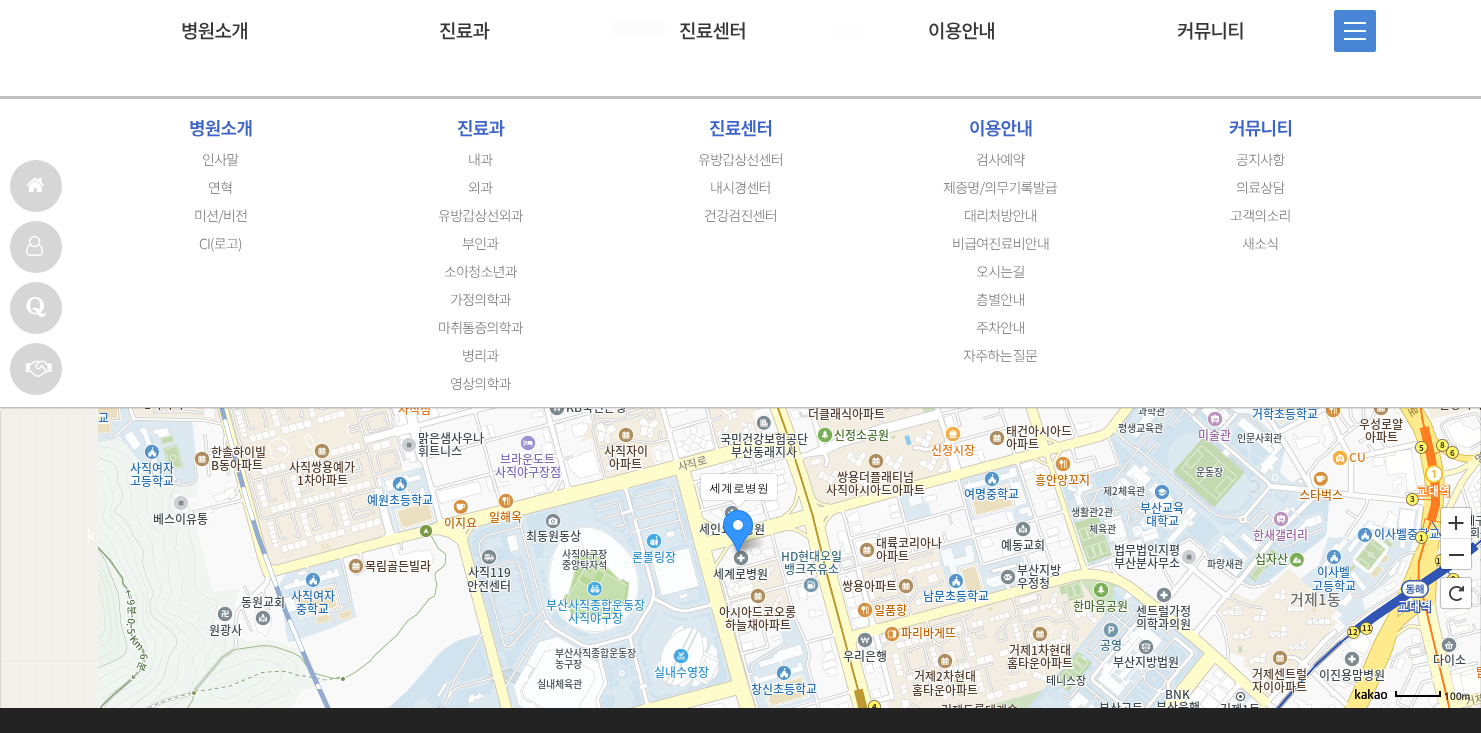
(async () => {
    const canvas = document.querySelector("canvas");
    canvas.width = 1481;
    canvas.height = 733;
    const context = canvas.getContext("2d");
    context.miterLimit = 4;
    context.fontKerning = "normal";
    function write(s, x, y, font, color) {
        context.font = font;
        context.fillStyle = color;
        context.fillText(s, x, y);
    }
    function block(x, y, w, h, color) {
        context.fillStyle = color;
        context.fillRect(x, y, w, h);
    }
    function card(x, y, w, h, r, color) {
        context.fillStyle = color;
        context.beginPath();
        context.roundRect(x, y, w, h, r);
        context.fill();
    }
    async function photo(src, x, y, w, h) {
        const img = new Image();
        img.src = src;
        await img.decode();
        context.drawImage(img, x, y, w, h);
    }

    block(0, 0, 1481, 733, "rgb(255, 255, 255)");
    context.fillStyle = "rgb(214, 214, 214)";
    context.beginPath();
    context.arc(36, 186, 26, 0, Math.PI * 2);
    context.fill();
    await photo("media/1.png", 26, 177, 18, 15);
    context.beginPath();
    context.arc(36, 247, 26, 0, Math.PI * 2);
    context.fill();
    await photo("media/2.png", 26, 235, 18, 21);
    context.beginPath();
    context.arc(36, 308, 26, 0, Math.PI * 2);
    context.fill();
    await photo("media/3.png", 26, 296, 20, 21);
    context.beginPath();
    context.arc(36, 369, 26, 0, Math.PI * 2);
    context.fill();
    await photo("media/4.png", 26, 360, 26, 17);
    context.letterSpacing = "-0.75px";
    write("병원소개", 181, 38, "500 19px Noto Sans KR", "rgb(55, 55, 55)");
    write("진료과", 439, 38, "500 19px Noto Sans KR", "rgb(55, 55, 55)");
    write("진료센터", 679, 38, "500 19px Noto Sans KR", "rgb(55, 55, 55)");
    write("이용안내", 928, 38, "500 19px Noto Sans KR", "rgb(55, 55, 55)");
    write("커뮤니티", 1177, 38, "500 19px Noto Sans KR", "rgb(55, 55, 55)");
    card(1334, 10, 42, 42, 2, "rgb(73, 133, 213)");
    block(1344, 22, 22, 2, "rgb(255, 255, 255)");
    block(1344, 30, 22, 2, "rgb(255, 255, 255)");
    block(1344, 38, 22, 2, "rgb(255, 255, 255)");
    block(612, 22, 53, 14, "rgb(252, 252, 252)");
    context.beginPath();
    context.moveTo(652.5, 27);
    context.lineTo(656.5, 31);
    context.lineTo(660.5, 27);
    context.strokeStyle = "rgb(255, 255, 255)";
    context.lineWidth = 2;
    context.stroke();
    await photo("media/5.png", 830, 20, 34, 20);
    block(0, 96, 1481, 3, "rgb(192, 192, 192)");
    block(0, 407, 1481, 1, "rgb(192, 192, 192)");
    write("병원소개", 189, 135, "600 18px Noto Sans KR", "rgb(61, 100, 201)");
    write("인사말", 202, 165, "300 14px Noto Sans KR", "rgb(110, 110, 110)");
    write("연혁", 208, 193, "300 14px Noto Sans KR", "rgb(110, 110, 110)");
    write("미션/비전", 194, 221, "300 14px Noto Sans KR", "rgb(110, 110, 110)");
    write("CI(로고)", 199, 249, "300 14px Noto Sans KR", "rgb(110, 110, 110)");
    write("진료과", 457, 135, "600 18px Noto Sans KR", "rgb(61, 100, 201)");
    write("내과", 468, 165, "300 14px Noto Sans KR", "rgb(110, 110, 110)");
    write("외과", 468, 193, "300 14px Noto Sans KR", "rgb(110, 110, 110)");
    write("유방갑상선외과", 438, 221, "300 14px Noto Sans KR", "rgb(110, 110, 110)");
    write("부인과", 462, 249, "300 14px Noto Sans KR", "rgb(110, 110, 110)");
    write("소아청소년과", 444, 277, "300 14px Noto Sans KR", "rgb(110, 110, 110)");
    write("가정의학과", 450, 305, "300 14px Noto Sans KR", "rgb(110, 110, 110)");
    write("마취통증의학과", 438, 333, "300 14px Noto Sans KR", "rgb(110, 110, 110)");
    write("병리과", 462, 361, "300 14px Noto Sans KR", "rgb(110, 110, 110)");
    write("영상의학과", 450, 389, "300 14px Noto Sans KR", "rgb(110, 110, 110)");
    write("진료센터", 709, 135, "600 18px Noto Sans KR", "rgb(61, 100, 201)");
    write("유방갑상선센터", 698, 165, "300 14px Noto Sans KR", "rgb(110, 110, 110)");
    write("내시경센터", 710, 193, "300 14px Noto Sans KR", "rgb(110, 110, 110)");
    write("건강검진센터", 704, 221, "300 14px Noto Sans KR", "rgb(110, 110, 110)");
    write("이용안내", 969, 135, "600 18px Noto Sans KR", "rgb(61, 100, 201)");
    write("검사예약", 976, 165, "300 14px Noto Sans KR", "rgb(110, 110, 110)");
    write("제증명/의무기록발급", 943, 193, "300 14px Noto Sans KR", "rgb(110, 110, 110)");
    write("대리처방안내", 964, 221, "300 14px Noto Sans KR", "rgb(110, 110, 110)");
    write("비급여진료비안내", 952, 249, "300 14px Noto Sans KR", "rgb(110, 110, 110)");
    write("오시는길", 976, 277, "300 14px Noto Sans KR", "rgb(110, 110, 110)");
    write("층별안내", 976, 305, "300 14px Noto Sans KR", "rgb(110, 110, 110)");
    write("주차안내", 976, 333, "300 14px Noto Sans KR", "rgb(110, 110, 110)");
    context.wordSpacing = "-1px";
    write("자주하는 질문", 963, 361, "300 14px Noto Sans KR", "rgb(110, 110, 110)");
    context.wordSpacing = "0px";
    write("커뮤니티", 1229, 135, "600 18px Noto Sans KR", "rgb(61, 100, 201)");
    write("공지사항", 1236, 165, "300 14px Noto Sans KR", "rgb(110, 110, 110)");
    write("의료상담", 1236, 193, "300 14px Noto Sans KR", "rgb(110, 110, 110)");
    write("고객의소리", 1230, 221, "300 14px Noto Sans KR", "rgb(110, 110, 110)");
    write("새소식", 1242, 249, "300 14px Noto Sans KR", "rgb(110, 110, 110)");
    await photo("media/6.png", 0, 408, 98, 300);
    await photo("media/7.png", 98, 408, 256, 25);
    await photo("media/8.png", 354, 408, 256, 25);
    await photo("media/9.png", 610, 408, 256, 25);
    await photo("media/10.png", 866, 408, 256, 25);
    await photo("media/11.png", 1122, 408, 256, 25);
    await photo("media/12.png", 1378, 408, 103, 25);
    block(1, 408, 1480, 1, "rgba(0, 0, 0, 0.1)");
    block(0, 410, 1, 298, "rgba(0, 0, 0, 0.1)");
    await photo("media/13.png", 98, 433, 256, 256);
    await photo("media/14.png", 354, 433, 256, 256);
    await photo("media/15.png", 610, 433, 256, 256);
    await photo("media/16.png", 866, 433, 256, 256);
    await photo("media/17.png", 1122, 433, 256, 256);
    await photo("media/18.png", 1378, 433, 103, 256);
    await photo("media/19.png", 98, 689, 256, 19);
    await photo("media/20.png", 354, 689, 256, 19);
    await photo("media/21.png", 610, 689, 256, 19);
    await photo("media/22.png", 866, 689, 256, 19);
    await photo("media/23.png", 1122, 689, 256, 19);
    await photo("media/24.png", 1378, 689, 103, 19);
    context.beginPath();
    context.roundRect(700.5, 473.5, 77, 27, 2.5);
    context.strokeStyle = "rgba(0, 0, 0, 0.1)";
    context.lineWidth = 1;
    context.stroke();
    card(701, 474, 76, 26, 3, "rgb(255, 255, 255)");
    context.letterSpacing = "0px";
    write("세계로병원", 709, 493, "12px Dotum", "rgb(0, 0, 0)");
    await photo("media/25.png", 731, 500, 15, 8);
    await photo("media/26.png", 723, 510, 42, 46);
    await photo("media/27.png", 1355, 689, 32, 10);
    block(1439, 691, 2, 6, "rgb(0, 0, 0)");
    block(1395, 695, 46, 2, "rgb(0, 0, 0)");
    block(1395, 691, 2, 6, "rgb(0, 0, 0)");
    write("100m", 1444, 700, "bold 10px Dotum", "rgb(0, 0, 0)");
    block(1480, 410, 1, 298, "rgba(0, 0, 0, 0.1)");
    await photo("media/28.png", 1439, 506, 34, 104);
    await photo("media/29.png", 1448, 516, 16, 14);
    block(1449, 554, 15, 2, "rgb(56, 58, 61)");
    await photo("media/30.png", 1449, 586, 15, 15);
    block(0, 708, 1481, 25, "rgb(35, 35, 35)");
})();
